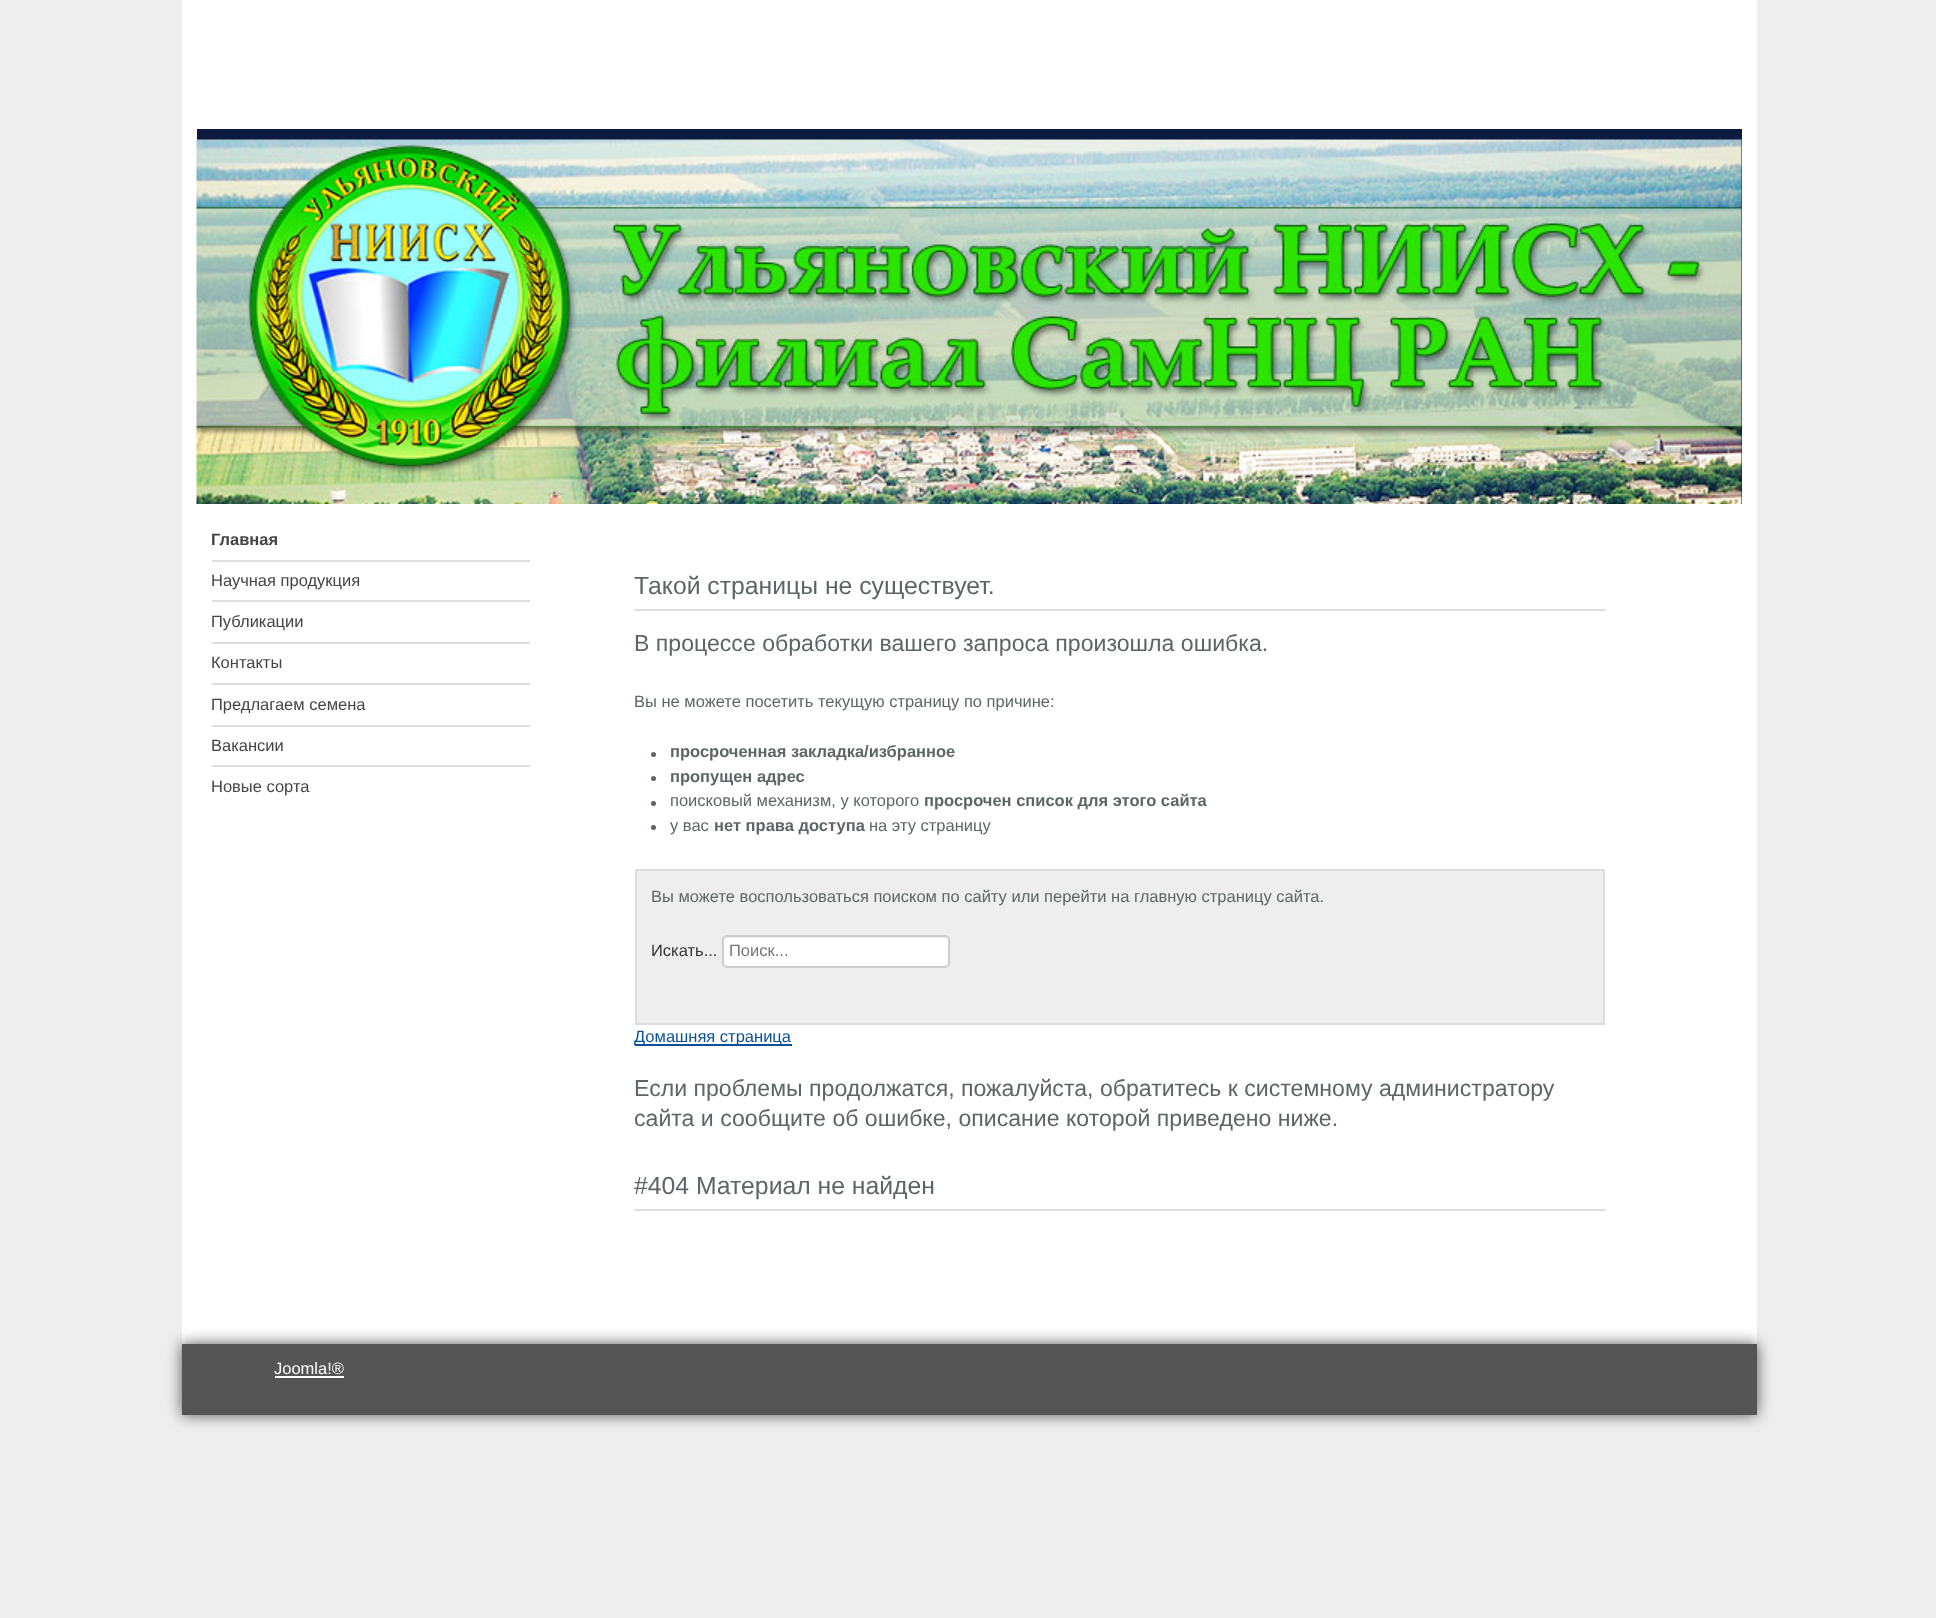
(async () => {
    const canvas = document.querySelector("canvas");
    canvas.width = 1936;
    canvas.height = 1618;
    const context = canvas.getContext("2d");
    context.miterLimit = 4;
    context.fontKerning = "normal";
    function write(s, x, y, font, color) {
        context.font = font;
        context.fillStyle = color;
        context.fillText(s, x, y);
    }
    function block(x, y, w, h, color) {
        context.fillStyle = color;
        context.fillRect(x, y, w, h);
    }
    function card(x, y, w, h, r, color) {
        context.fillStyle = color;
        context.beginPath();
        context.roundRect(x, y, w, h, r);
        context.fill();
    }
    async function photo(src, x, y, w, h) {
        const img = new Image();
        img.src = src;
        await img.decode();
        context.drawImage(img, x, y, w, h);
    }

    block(0, 0, 1936, 1618, "rgb(238, 238, 238)");
    block(182, 0, 1575, 1344, "rgb(255, 255, 255)");
    block(197, 129, 1545, 375, "rgb(12, 26, 62)");
    await photo("media/1.png", 196, 139, 1546, 365);
    block(212, 560, 318, 2, "rgb(221, 221, 221)");
    write("Главная", 211, 545, "bold 16.5px Liberation Sans", "rgb(68, 68, 68)");
    block(212, 600, 318, 2, "rgb(221, 221, 221)");
    write("Научная продукция", 211, 586, "16.5px Liberation Sans", "rgb(68, 68, 68)");
    block(212, 642, 318, 2, "rgb(221, 221, 221)");
    write("Публикации", 211, 627, "16.5px Liberation Sans", "rgb(68, 68, 68)");
    block(212, 683, 318, 2, "rgb(221, 221, 221)");
    write("Контакты", 211, 668, "16.5px Liberation Sans", "rgb(68, 68, 68)");
    block(212, 725, 318, 2, "rgb(221, 221, 221)");
    write("Предлагаем семена", 211, 710, "16.5px Liberation Sans", "rgb(68, 68, 68)");
    block(212, 765, 318, 2, "rgb(221, 221, 221)");
    write("Вакансии", 211, 751, "16.5px Liberation Sans", "rgb(68, 68, 68)");
    write("Новые сорта", 211, 792, "16.5px Liberation Sans", "rgb(68, 68, 68)");
    block(635, 609, 970, 2, "rgb(221, 221, 221)");
    write("Такой страницы не существует.", 634, 594, "24.75px Liberation Sans", "rgb(95, 101, 101)");
    write("В процессе обработки вашего запроса произошла ошибка.", 634, 651, "23.1px Liberation Sans", "rgb(95, 101, 101)");
    write("Вы не можете посетить текущую страницу по причине:", 634, 707, "16.5px Liberation Sans", "rgb(95, 101, 101)");
    context.beginPath();
    context.arc(653.5, 754.5, 2.5, 0, Math.PI * 2);
    context.fill();
    write("просроченная закладка/избранное", 670, 757, "bold 16.5px Liberation Sans", "rgb(95, 101, 101)");
    context.beginPath();
    context.arc(653.5, 778.5, 2.5, 0, Math.PI * 2);
    context.fill();
    write("пропущен адрес", 670, 782, "bold 16.5px Liberation Sans", "rgb(95, 101, 101)");
    context.beginPath();
    context.arc(653.5, 803.5, 2.5, 0, Math.PI * 2);
    context.fill();
    write("поисковый механизм, у которого", 670, 806, "16.5px Liberation Sans", "rgb(95, 101, 101)");
    write("просрочен список для этого сайта", 924, 806, "bold 16.5px Liberation Sans", "rgb(95, 101, 101)");
    context.beginPath();
    context.arc(653.5, 827.5, 2.5, 0, Math.PI * 2);
    context.fill();
    write("у вас", 670, 831, "16.5px Liberation Sans", "rgb(95, 101, 101)");
    write("нет права доступа", 714, 831, "bold 16.5px Liberation Sans", "rgb(95, 101, 101)");
    write("на эту страницу", 869, 831, "16.5px Liberation Sans", "rgb(95, 101, 101)");
    context.fillStyle = "rgb(238, 238, 238)";
    context.beginPath();
    context.rect(636, 870, 968, 154);
    context.fill();
    context.strokeStyle = "rgb(221, 221, 221)";
    context.lineWidth = 2;
    context.stroke();
    write("Вы можете воспользоваться поиском по сайту или перейти на главную страницу сайта.", 651, 902, "16.5px Liberation Sans", "rgb(95, 101, 101)");
    write("Искать...", 651, 956, "16.5px Liberation Sans", "rgb(51, 51, 51)");
    card(722, 935, 228, 33, 5, "rgb(255, 255, 255)");
    context.fillStyle = "rgb(236, 236, 236)";
    context.beginPath();
    context.moveTo(726, 938);
    context.lineTo(945, 938);
    context.bezierCurveTo(947, 938, 948, 939, 948, 940);
    context.lineTo(948, 939);
    context.bezierCurveTo(948, 937, 947, 936, 945, 936);
    context.lineTo(726, 936);
    context.bezierCurveTo(724, 936, 723, 937, 723, 939);
    context.lineTo(723, 940);
    context.bezierCurveTo(723, 939, 724, 938, 726, 938);
    context.closePath();
    context.fill();
    context.beginPath();
    context.roundRect(723, 936, 226, 31, 4);
    context.strokeStyle = "rgb(204, 204, 204)";
    context.stroke();
    write("Поиск...", 729, 956, "16.5px Liberation Sans", "rgb(117, 117, 117)");
    block(635, 1044, 157, 2, "rgb(9, 81, 151)");
    write("Домашняя страница", 634, 1042, "16.5px Liberation Sans", "rgb(9, 81, 151)");
    write("Если проблемы продолжатся, пожалуйста, обратитесь к системному администратору", 634, 1096, "23.1px Liberation Sans", "rgb(95, 101, 101)");
    write("сайта и сообщите об ошибке, описание которой приведено ниже.", 634, 1126, "23.1px Liberation Sans", "rgb(95, 101, 101)");
    block(635, 1209, 970, 2, "rgb(221, 221, 221)");
    write("#404 Материал не найден", 634, 1194, "24.75px Liberation Sans", "rgb(95, 101, 101)");
    context.fillStyle = "rgb(85, 85, 85)";
    context.filter = "blur(7.5px)";
    context.beginPath();
    context.rect(182, 1344, 1575, 71);
    context.fill();
    context.filter = "none";
    block(182, 1344, 1575, 71, "rgb(85, 85, 85)");
    write("Joomla!®", 274, 1374, "16.5px Liberation Sans", "rgb(255, 255, 255)");
    block(275, 1376, 69, 2, "rgb(255, 255, 255)");
})();
